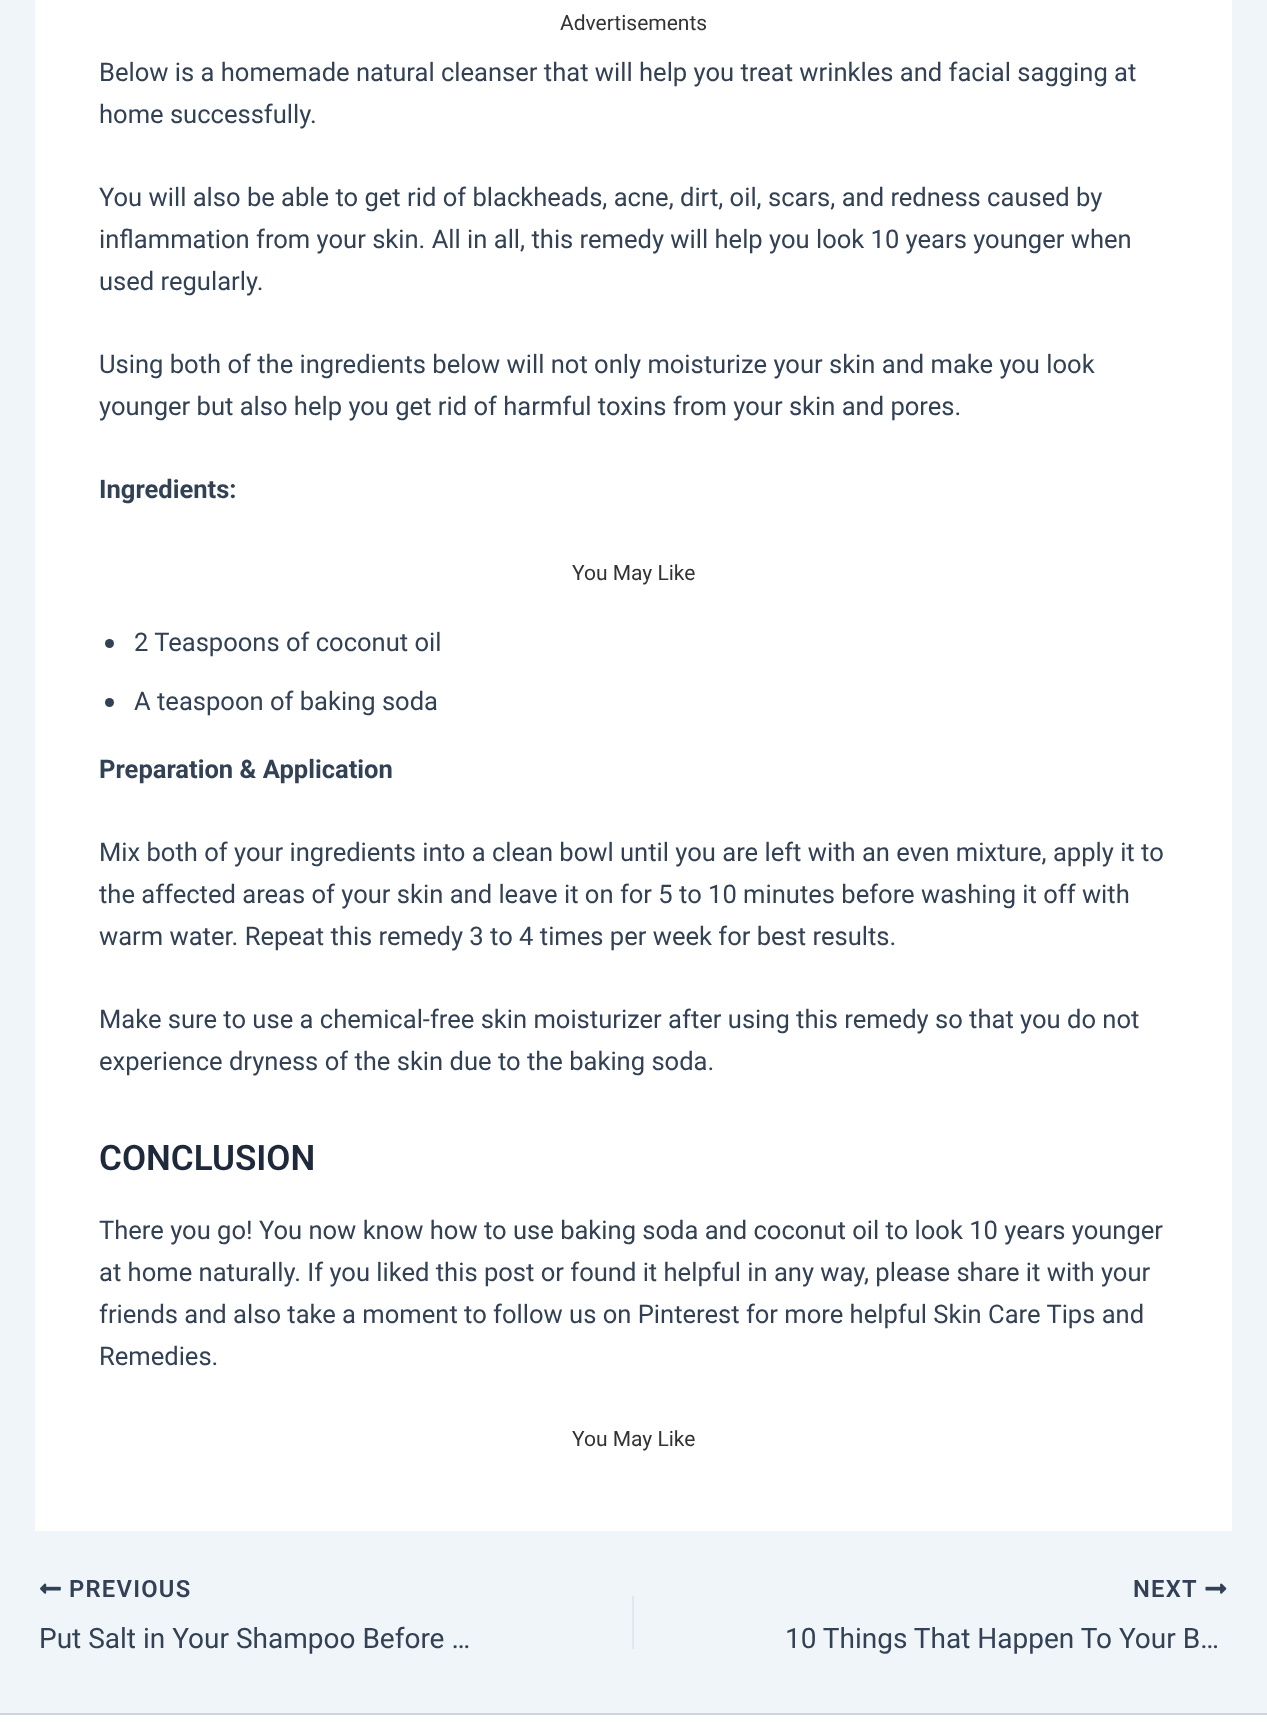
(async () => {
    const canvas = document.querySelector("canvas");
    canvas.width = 1267;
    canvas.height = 1732;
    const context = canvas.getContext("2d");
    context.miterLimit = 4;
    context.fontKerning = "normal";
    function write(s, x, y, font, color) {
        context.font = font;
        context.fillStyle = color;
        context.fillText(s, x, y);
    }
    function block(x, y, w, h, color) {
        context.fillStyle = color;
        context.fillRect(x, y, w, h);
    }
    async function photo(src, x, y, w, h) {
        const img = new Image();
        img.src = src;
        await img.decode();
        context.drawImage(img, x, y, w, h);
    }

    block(0, 0, 1267, 1732, "rgb(240, 245, 250)");
    block(35, 0, 1197, 1531, "rgb(255, 255, 255)");
    write("Advertisements", 560, 30, "21px Roboto", "rgb(51, 51, 51)");
    write("Below is a homemade natural cleanser that will help you treat wrinkles and facial sagging at", 99, 81, "25.55px Roboto", "rgb(51, 65, 85)");
    write("home successfully.", 99, 123, "25.55px Roboto", "rgb(51, 65, 85)");
    write("You will also be able to get rid of blackheads, acne, dirt, oil, scars, and redness caused by", 99, 206, "25.55px Roboto", "rgb(51, 65, 85)");
    write("inflammation from your skin. All in all, this remedy will help you look 10 years younger when", 99, 248, "25.55px Roboto", "rgb(51, 65, 85)");
    write("used regularly.", 99, 290, "25.55px Roboto", "rgb(51, 65, 85)");
    write("Using both of the ingredients below will not only moisturize your skin and make you look", 99, 373, "25.55px Roboto", "rgb(51, 65, 85)");
    write("younger but also help you get rid of harmful toxins from your skin and pores.", 99, 415, "25.55px Roboto", "rgb(51, 65, 85)");
    write("Ingredients:", 99, 498, "bold 25.55px Roboto", "rgb(51, 65, 85)");
    write("You May Like", 572, 580, "21px Roboto", "rgb(51, 51, 51)");
    context.fillStyle = "rgb(51, 65, 85)";
    context.beginPath();
    context.arc(109.5, 643.5, 4.5, 0, Math.PI * 2);
    context.fill();
    write("2 Teaspoons of coconut oil", 134, 651, "25.55px Roboto", "rgb(51, 65, 85)");
    context.beginPath();
    context.arc(109.5, 702.5, 4.5, 0, Math.PI * 2);
    context.fill();
    write("A teaspoon of baking soda", 134, 710, "25.55px Roboto", "rgb(51, 65, 85)");
    write("Preparation & Application", 99, 778, "bold 25.55px Roboto", "rgb(51, 65, 85)");
    write("Mix both of your ingredients into a clean bowl until you are left with an even mixture, apply it to", 99, 861, "25.55px Roboto", "rgb(51, 65, 85)");
    write("the affected areas of your skin and leave it on for 5 to 10 minutes before washing it off with", 99, 903, "25.55px Roboto", "rgb(51, 65, 85)");
    write("warm water. Repeat this remedy 3 to 4 times per week for best results.", 99, 945, "25.55px Roboto", "rgb(51, 65, 85)");
    write("Make sure to use a chemical-free skin moisturizer after using this remedy so that you do not", 99, 1028, "25.55px Roboto", "rgb(51, 65, 85)");
    write("experience dryness of the skin due to the baking soda.", 99, 1070, "25.55px Roboto", "rgb(51, 65, 85)");
    write("CONCLUSION", 99, 1170, "600 35px Roboto", "rgb(30, 41, 59)");
    write("There you go! You now know how to use baking soda and coconut oil to look 10 years younger", 99, 1239, "25.55px Roboto", "rgb(51, 65, 85)");
    write("at home naturally. If you liked this post or found it helpful in any way, please share it with your", 99, 1281, "25.55px Roboto", "rgb(51, 65, 85)");
    write("friends and also take a moment to follow us on Pinterest for more helpful Skin Care Tips and", 99, 1323, "25.55px Roboto", "rgb(51, 65, 85)");
    write("Remedies.", 99, 1365, "25.55px Roboto", "rgb(51, 65, 85)");
    write("You May Like", 572, 1446, "21px Roboto", "rgb(51, 51, 51)");
    await photo("media/1.png", 40, 1583, 21, 11);
    context.letterSpacing = "1.25px";
    write("PREVIOUS", 69, 1597, "600 23.75px Roboto", "rgb(51, 65, 85)");
    context.letterSpacing = "0px";
    write("Put Salt in Your Shampoo Before …", 39, 1648, "28px Roboto", "rgb(51, 65, 85)");
    block(632, 1596, 2, 53, "rgb(225, 232, 237)");
    context.letterSpacing = "1.25px";
    write("NEXT", 1133, 1597, "600 23.75px Roboto", "rgb(51, 65, 85)");
    await photo("media/2.png", 1205, 1583, 22, 11);
    context.letterSpacing = "0px";
    write("10 Things That Happen To Your B…", 785, 1648, "28px Roboto", "rgb(51, 65, 85)");
    block(0, 1715, 1267, 17, "rgb(255, 255, 255)");
    block(0, 1713, 1267, 2, "rgb(209, 213, 219)");
})();
